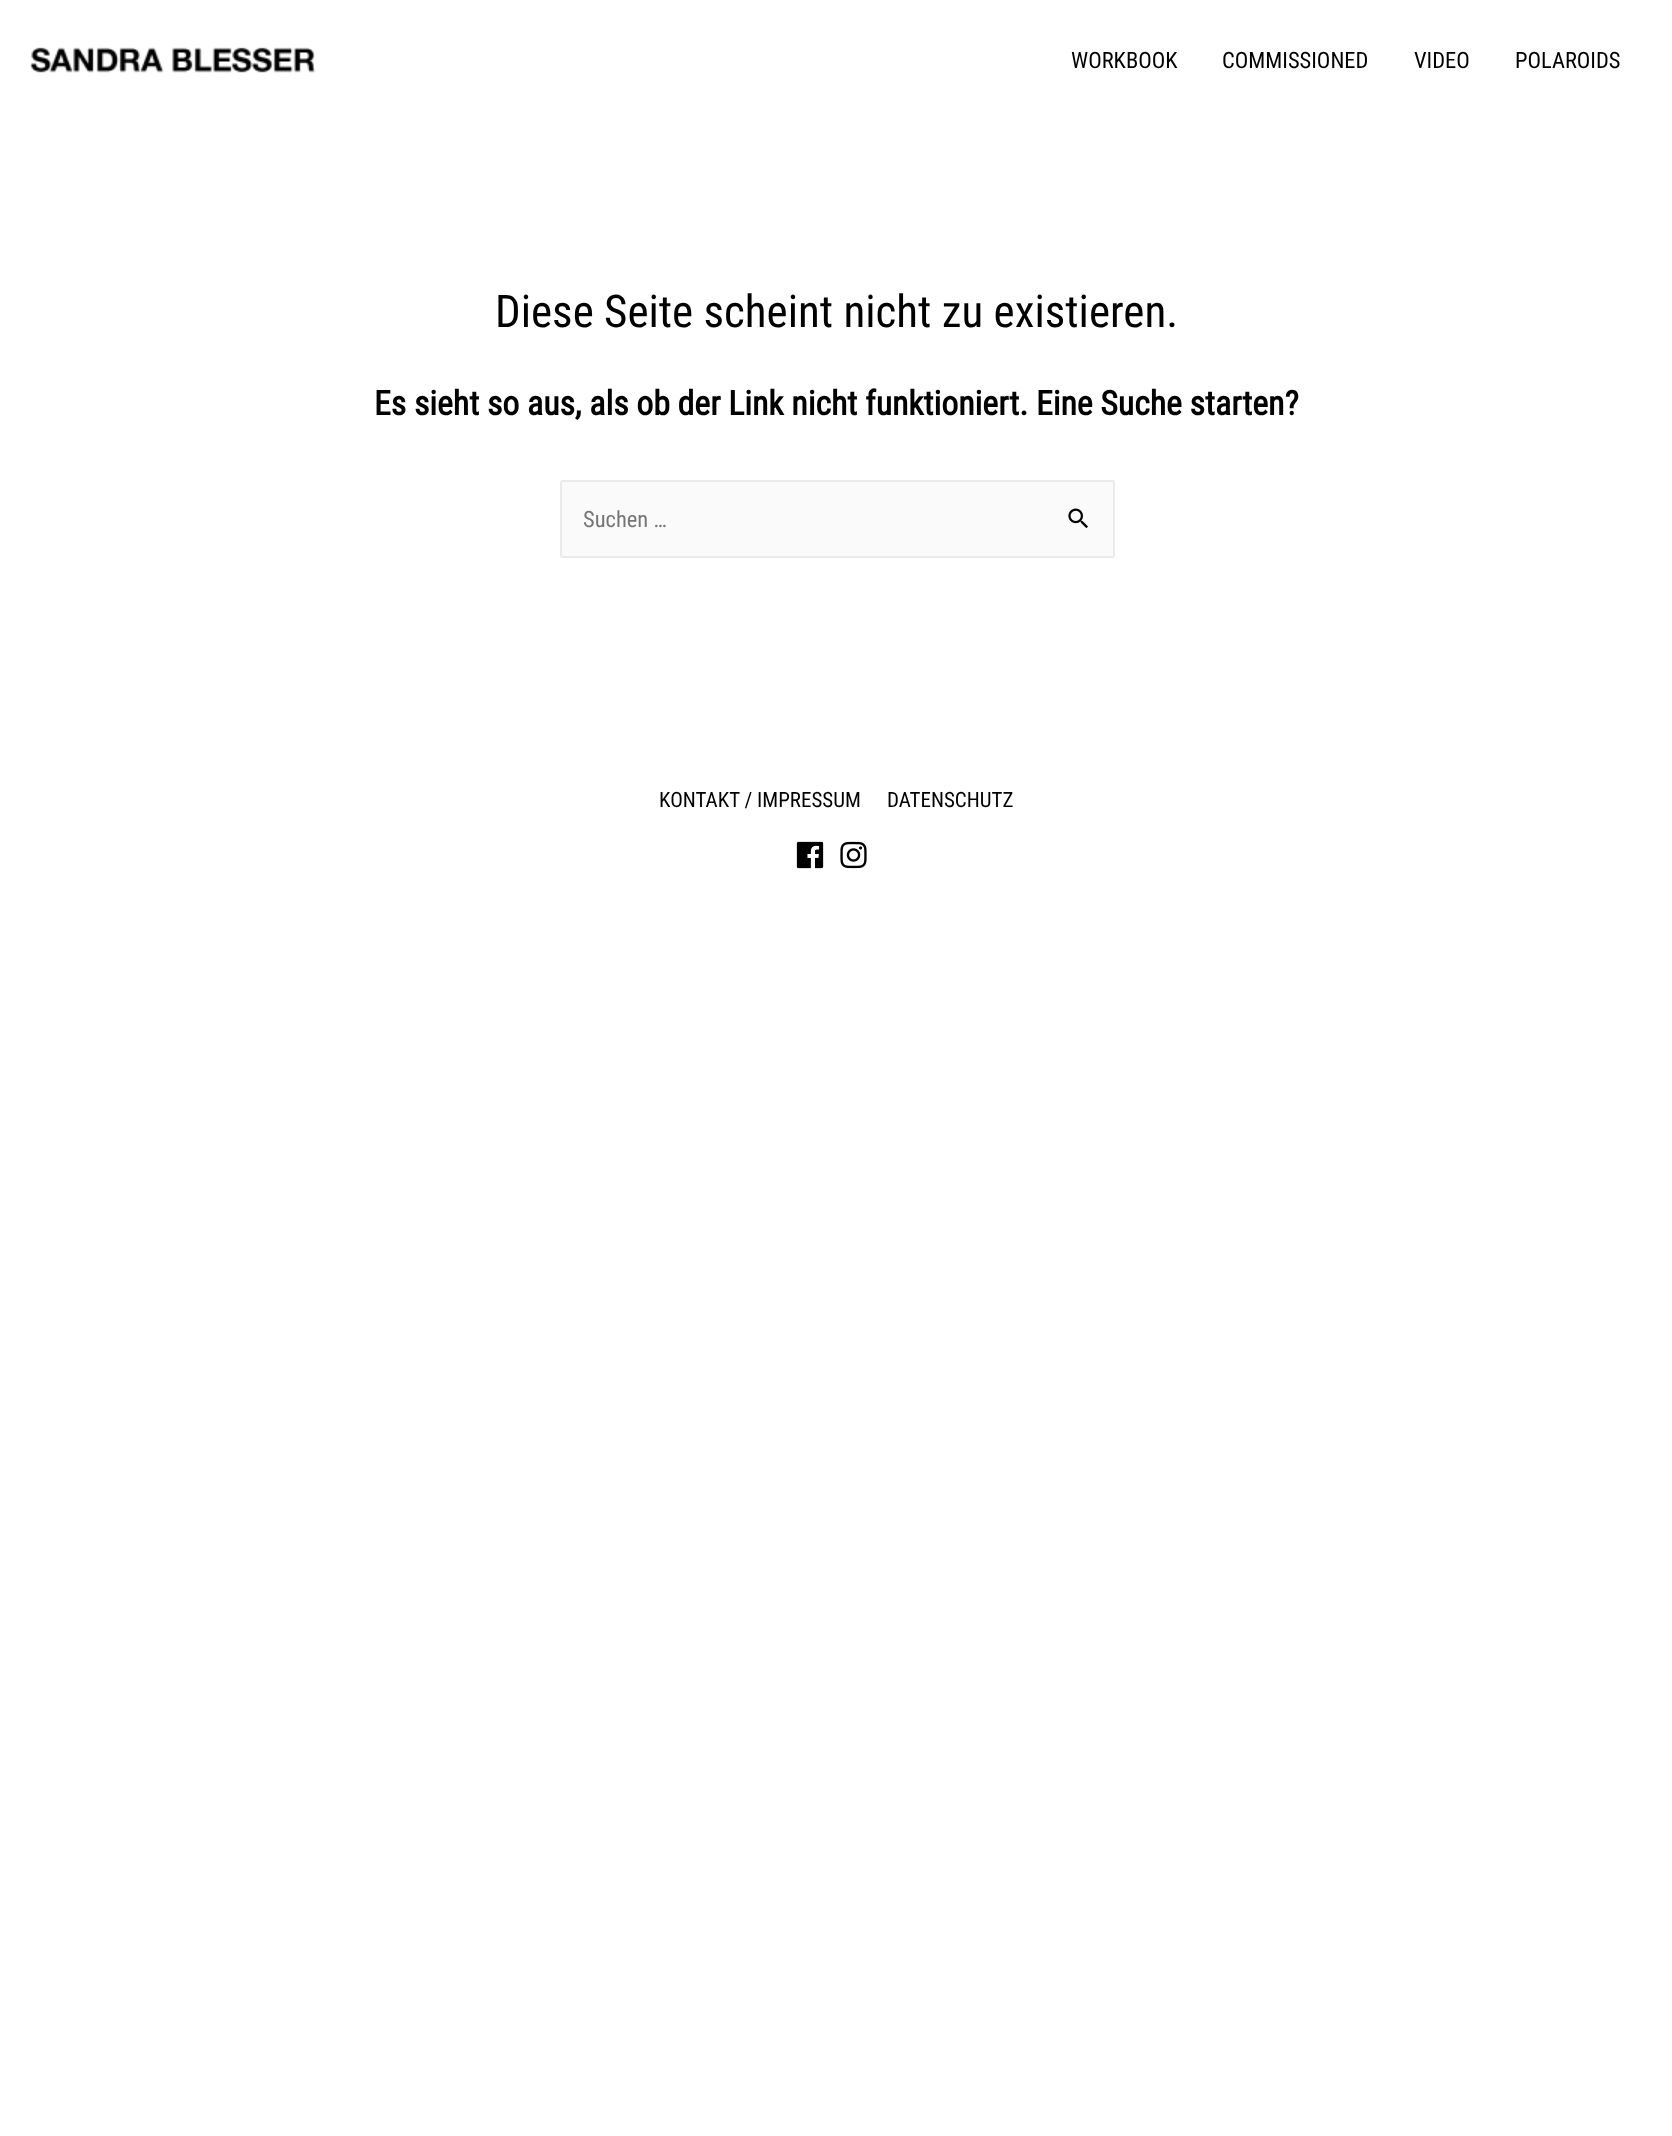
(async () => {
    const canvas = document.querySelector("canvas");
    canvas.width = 1672;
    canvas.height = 2136;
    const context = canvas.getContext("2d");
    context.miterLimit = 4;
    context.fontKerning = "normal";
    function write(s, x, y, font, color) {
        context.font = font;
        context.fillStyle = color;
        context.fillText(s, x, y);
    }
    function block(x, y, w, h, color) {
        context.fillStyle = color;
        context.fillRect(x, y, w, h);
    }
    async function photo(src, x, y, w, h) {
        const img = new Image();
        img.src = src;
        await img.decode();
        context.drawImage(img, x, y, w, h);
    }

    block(0, 0, 1672, 2136, "rgb(255, 255, 255)");
    await photo("media/1.png", 30, 47, 286, 26);
    write("WORKBOOK", 1071, 68, "22.5px Roboto Condensed", "rgb(0, 0, 0)");
    write("COMMISSIONED", 1222, 68, "22.5px Roboto Condensed", "rgb(0, 0, 0)");
    write("VIDEO", 1414, 68, "22.5px Roboto Condensed", "rgb(0, 0, 0)");
    write("POLAROIDS", 1515, 68, "22.5px Roboto Condensed", "rgb(0, 0, 0)");
    write("Diese Seite scheint nicht zu existieren.", 495, 327, "45px Roboto Condensed", "rgb(0, 0, 0)");
    write("Es sieht so aus, als ob der Link nicht funktioniert. Eine Suche starten?", 374, 415, "bold 33.75px Roboto Condensed", "rgb(0, 0, 0)");
    context.fillStyle = "rgb(250, 250, 250)";
    context.beginPath();
    context.roundRect(561, 481, 553, 76, 2);
    context.fill();
    context.strokeStyle = "rgb(234, 234, 234)";
    context.lineWidth = 2;
    context.stroke();
    write("Suchen …", 583, 527, "22.5px Roboto Condensed", "rgb(117, 117, 117)");
    await photo("media/2.png", 1068, 508, 20, 21);
    write("KONTAKT / IMPRESSUM", 659, 807, "21px Roboto Condensed", "rgb(0, 0, 0)");
    write("DATENSCHUTZ", 887, 807, "21px Roboto Condensed", "rgb(0, 0, 0)");
    await photo("media/3.png", 796, 841, 28, 28);
    await photo("media/4.png", 840, 841, 27, 28);
})();
